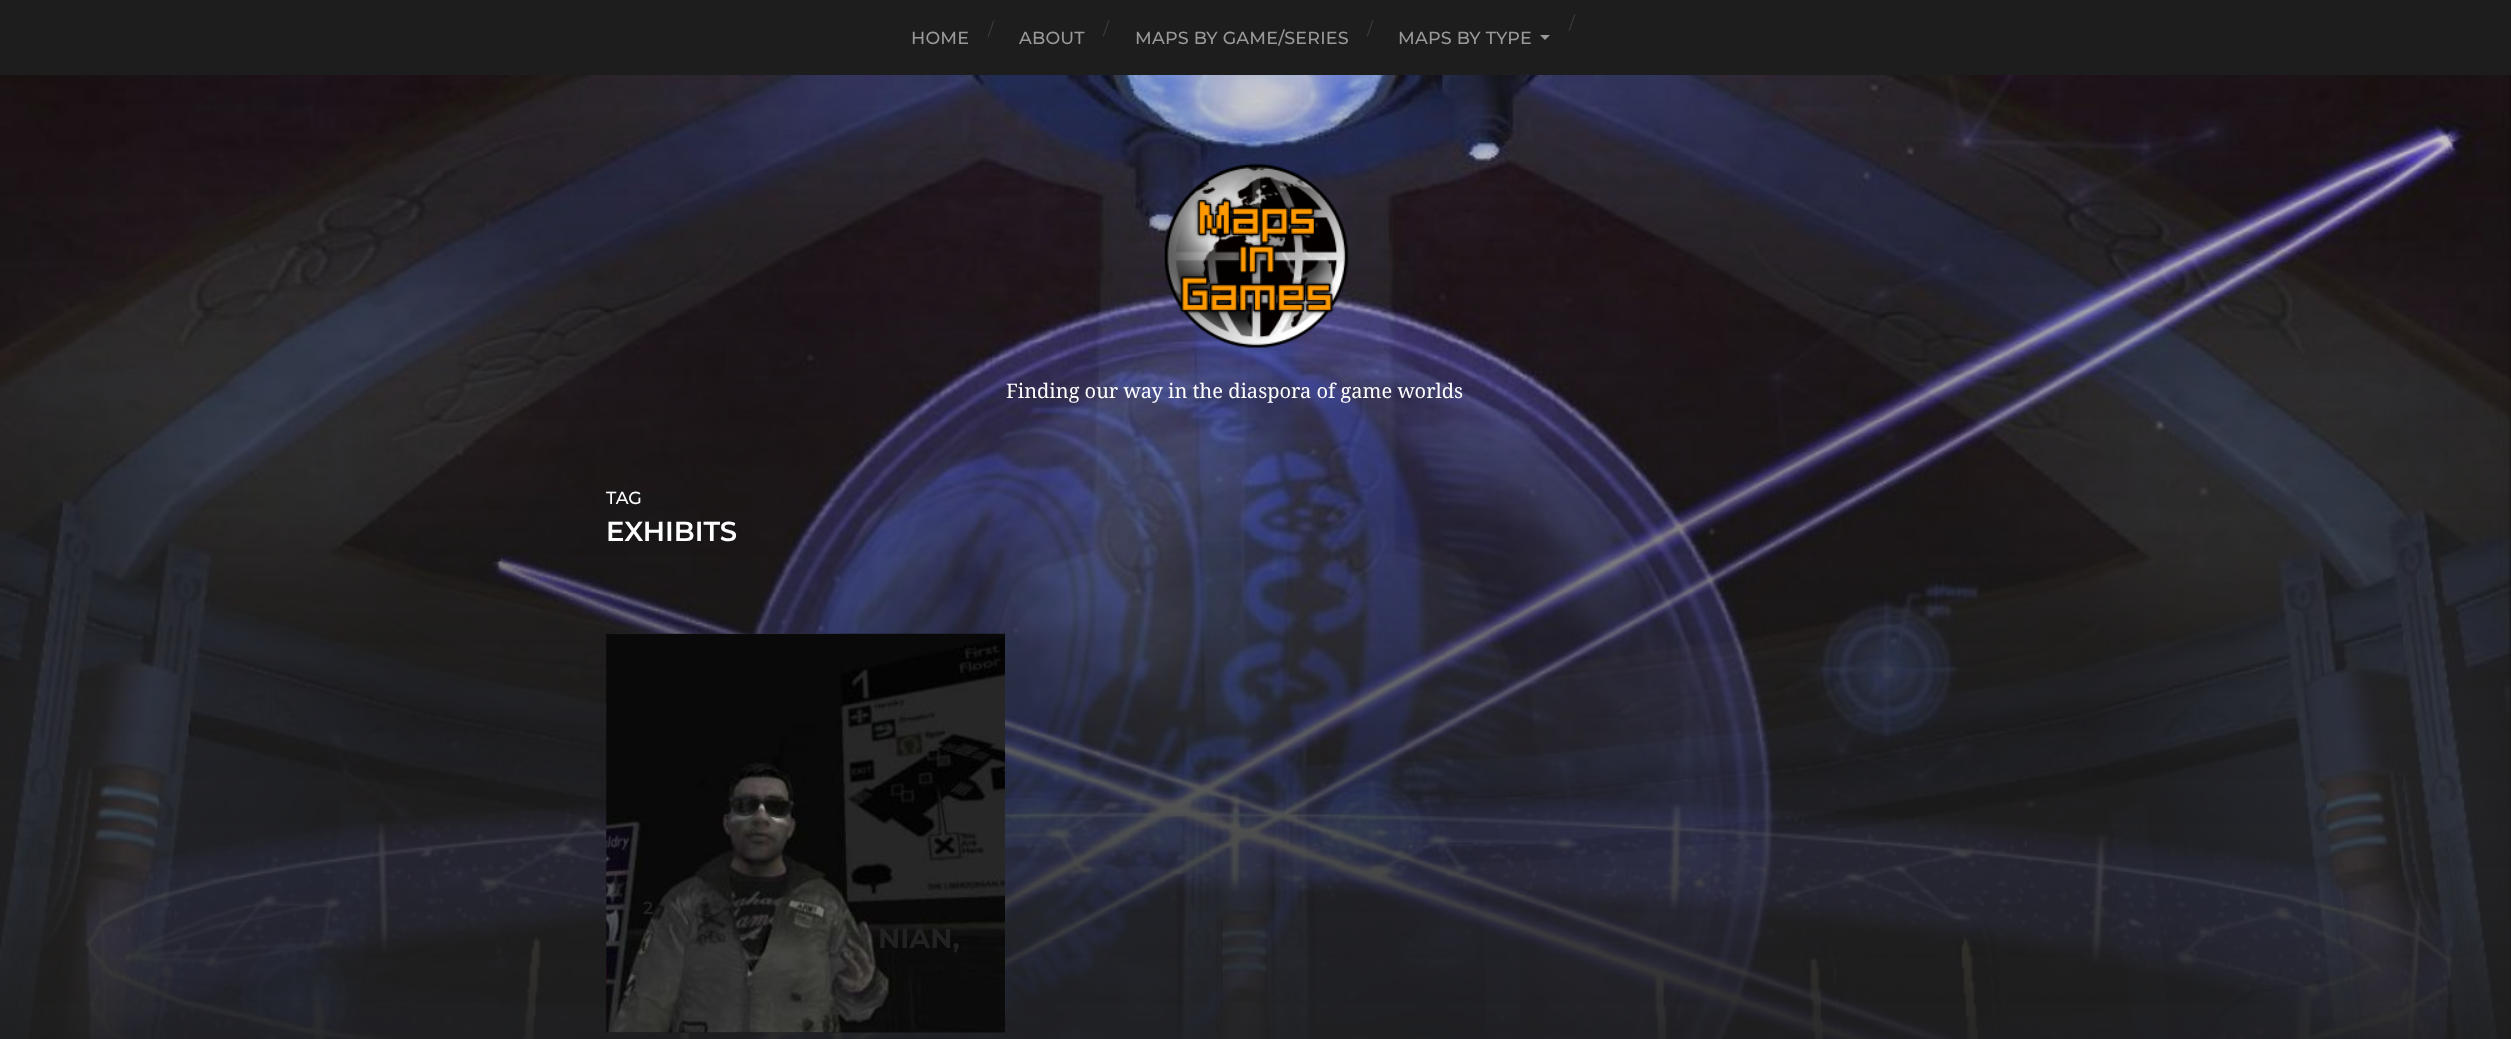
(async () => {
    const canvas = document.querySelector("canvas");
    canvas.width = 2511;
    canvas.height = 1039;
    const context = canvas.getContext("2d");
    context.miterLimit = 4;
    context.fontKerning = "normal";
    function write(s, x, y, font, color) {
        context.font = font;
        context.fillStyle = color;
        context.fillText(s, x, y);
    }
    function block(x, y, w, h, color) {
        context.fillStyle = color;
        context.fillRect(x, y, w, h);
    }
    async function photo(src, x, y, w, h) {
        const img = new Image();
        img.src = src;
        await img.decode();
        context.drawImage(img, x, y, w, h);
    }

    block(0, 0, 2511, 1039, "rgb(29, 29, 29)");
    context.letterSpacing = "0.2px";
    write("HOME", 911, 44, "500 17.5px Montserrat", "rgb(153, 153, 153)");
    context.letterSpacing = "0px";
    write("/", 988, 35, "17.5px Montserrat", "rgb(61, 61, 61)");
    context.letterSpacing = "0.2px";
    write("ABOUT", 1019, 44, "500 17.5px Montserrat", "rgb(153, 153, 153)");
    context.letterSpacing = "0px";
    write("/", 1103, 35, "17.5px Montserrat", "rgb(61, 61, 61)");
    context.letterSpacing = "0.2px";
    write("MAPS BY GAME/SERIES", 1135, 44, "500 17.5px Montserrat", "rgb(153, 153, 153)");
    context.letterSpacing = "0px";
    write("/", 1367, 35, "17.5px Montserrat", "rgb(61, 61, 61)");
    context.letterSpacing = "0.2px";
    write("MAPS BY TYPE", 1398, 44, "500 17.5px Montserrat", "rgb(153, 153, 153)");
    context.beginPath();
    context.moveTo(1540, 35);
    context.lineTo(1550, 35);
    context.lineTo(1545, 40);
    context.closePath();
    context.fill();
    context.letterSpacing = "0px";
    write("/", 1569, 29, "17.5px Montserrat", "rgb(61, 61, 61)");
    await photo("media/1.png", 0, 75, 2511, 964);
    await photo("media/2.png", 1164, 163, 185, 185);
    write("Finding our way in the diaspora of game worlds", 1006, 398, "20px Droid Serif", "rgb(255, 255, 255)");
    write("TAG", 606, 504, "500 17.5px Montserrat", "rgb(255, 255, 255)");
    write("EXHIBITS", 606, 541, "600 27.5px Montserrat", "rgb(255, 255, 255)");
    await photo("media/3.png", 606, 633, 399, 400);
    write("2", 643, 914, "600 17.5px Montserrat", "rgb(34, 34, 34)");
    write("NIAN,", 878, 948, "bold 27.5px Montserrat", "rgb(34, 34, 34)");
})();
